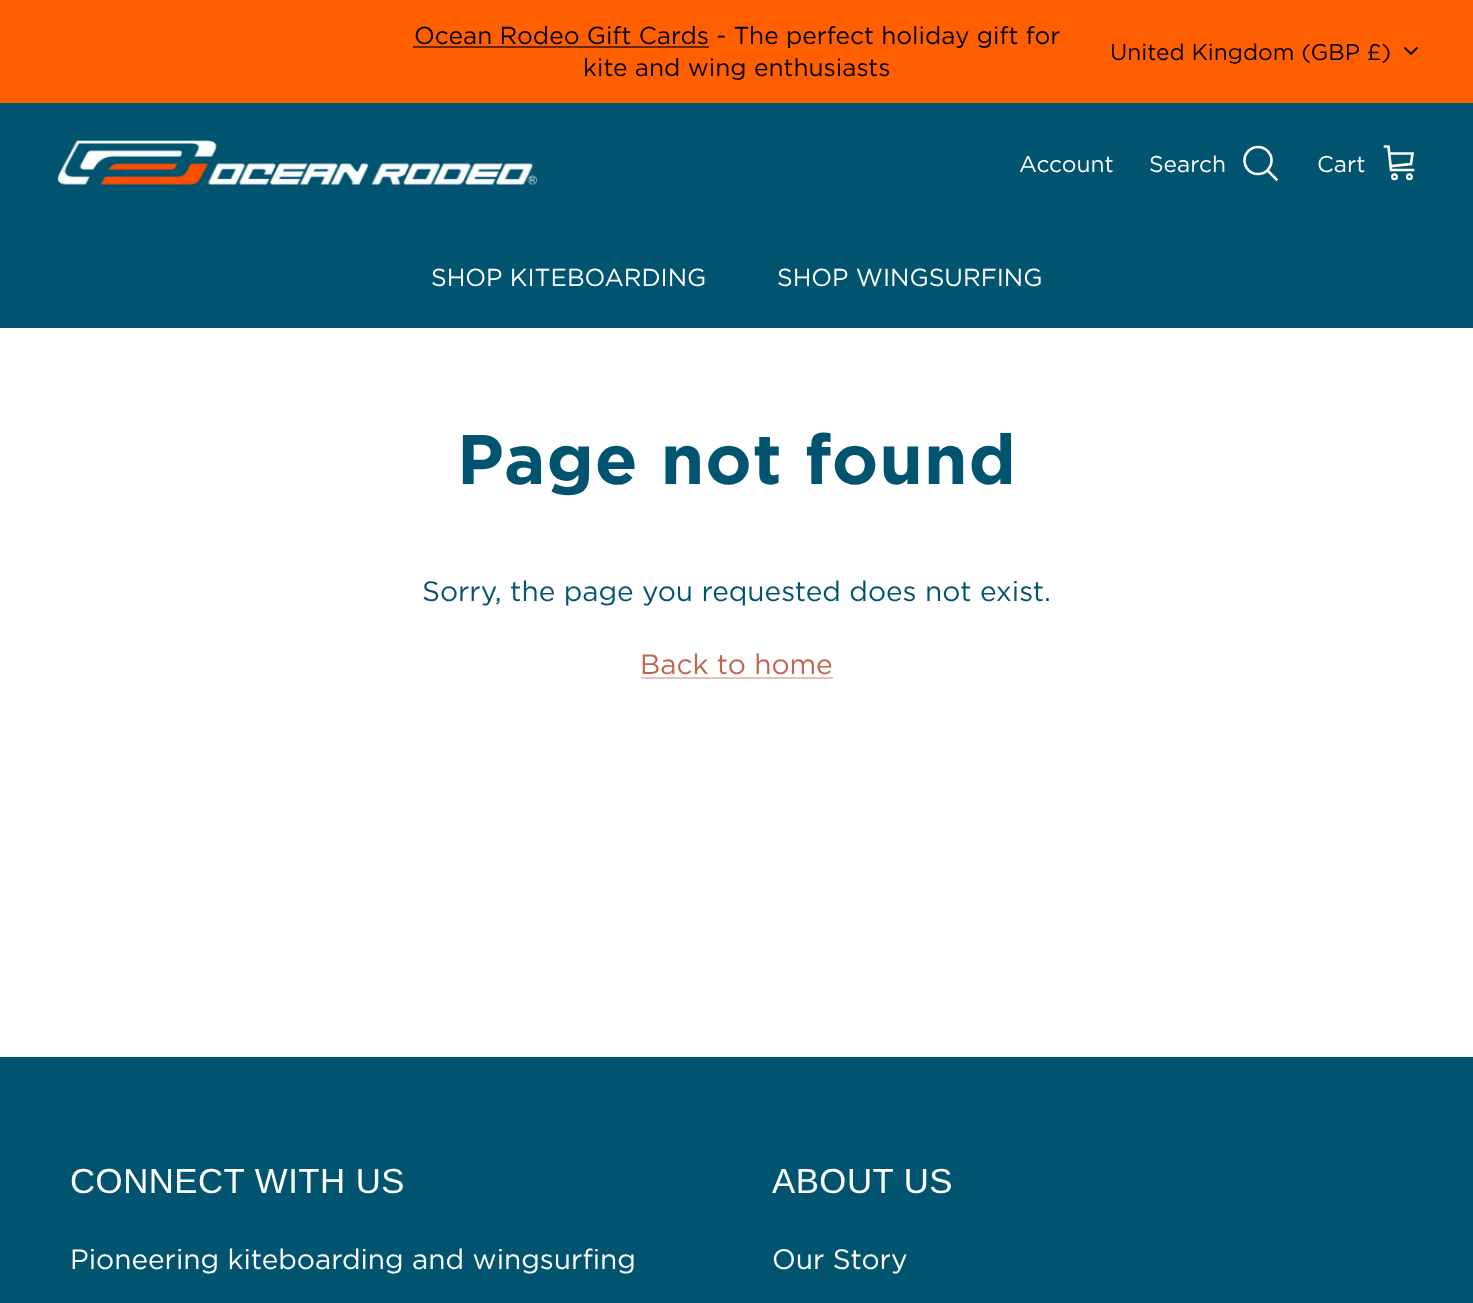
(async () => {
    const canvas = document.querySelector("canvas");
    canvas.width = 1473;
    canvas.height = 1303;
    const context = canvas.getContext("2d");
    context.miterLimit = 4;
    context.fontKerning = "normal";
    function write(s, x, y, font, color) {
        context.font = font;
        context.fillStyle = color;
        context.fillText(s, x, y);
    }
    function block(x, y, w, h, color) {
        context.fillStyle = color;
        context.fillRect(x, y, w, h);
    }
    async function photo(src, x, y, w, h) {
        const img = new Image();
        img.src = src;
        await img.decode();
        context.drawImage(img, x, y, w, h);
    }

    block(0, 0, 1473, 1303, "rgb(255, 255, 255)");
    block(0, 0, 1473, 103, "rgb(255, 95, 0)");
    block(413, 46, 296, 2, "rgb(102, 38, 0)");
    write("Ocean Rodeo Gift Cards - The perfect holiday gift for", 414, 44, "24.5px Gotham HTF", "rgb(0, 0, 0)");
    write("kite and wing enthusiasts", 583, 76, "24.5px Gotham HTF", "rgb(0, 0, 0)");
    write("United Kingdom (GBP £)", 1110, 60, "22.75px Gotham HTF", "rgb(0, 0, 0)");
    context.beginPath();
    context.moveTo(1417.5, 47.5);
    context.lineTo(1411, 54);
    context.lineTo(1404.5, 47.5);
    context.strokeStyle = "rgb(0, 0, 0)";
    context.lineWidth = 1.8;
    context.stroke();
    block(0, 103, 1473, 225, "rgb(0, 84, 111)");
    await photo("media/1.png", 57, 140, 481, 46);
    write("Account", 1019, 172, "22.75px Gotham HTF", "rgb(255, 255, 255)");
    write("Search", 1149, 172, "22.75px Gotham HTF", "rgb(255, 255, 255)");
    context.beginPath();
    context.arc(1258, 160.5, 13.5, 0, Math.PI * 2);
    context.strokeStyle = "rgb(255, 255, 255)";
    context.lineWidth = 2.6;
    context.stroke();
    context.beginPath();
    context.moveTo(1268.5, 171.5);
    context.lineTo(1276.5, 179.5);
    context.lineCap = "square";
    context.stroke();
    write("Cart", 1317, 172, "22.75px Gotham HTF", "rgb(255, 255, 255)");
    context.beginPath();
    context.moveTo(1385, 146.5);
    context.lineTo(1388.5, 146.5);
    context.lineTo(1391, 170);
    context.lineTo(1413, 170);
    context.moveTo(1390, 153.5);
    context.lineTo(1412.5, 153.5);
    context.lineTo(1411, 164);
    context.lineTo(1392.5, 166);
    context.stroke();
    context.beginPath();
    context.arc(1394.5, 176.8, 2.4, 0, Math.PI * 2);
    context.lineWidth = 2.2;
    context.stroke();
    context.beginPath();
    context.arc(1409.4, 176.8, 2.4, 0, Math.PI * 2);
    context.stroke();
    write("SHOP KITEBOARDING", 431, 286, "24.5px Gotham HTF", "rgb(255, 255, 255)");
    write("SHOP WINGSURFING", 777, 286, "24.5px Gotham HTF", "rgb(255, 255, 255)");
    context.letterSpacing = "1px";
    write("Page not found", 457, 484, "bold 70px Gotham HTF", "rgb(0, 84, 111)");
    context.letterSpacing = "0px";
    write("Sorry, the page you requested does not exist.", 422, 601, "28px Gotham HTF", "rgb(0, 84, 111)");
    write("Back to home", 640, 674, "28px Gotham HTF", "rgb(193, 100, 82)");
    block(641, 677, 192, 2, "rgb(230, 193, 186)");
    block(0, 1057, 1473, 246, "rgb(0, 84, 111)");
    context.letterSpacing = "0.5px";
    write("CONNECT WITH US", 70, 1193, "34.75px Liberation Sans", "rgb(255, 255, 255)");
    context.letterSpacing = "0px";
    write("Pioneering kiteboarding and wingsurfing", 70, 1269, "28px Gotham HTF", "rgb(255, 255, 255)");
    context.letterSpacing = "0.5px";
    write("ABOUT US", 772, 1193, "34.75px Liberation Sans", "rgb(255, 255, 255)");
    context.letterSpacing = "0px";
    write("Our Story", 772, 1269, "28px Gotham HTF", "rgb(255, 255, 255)");
})();
